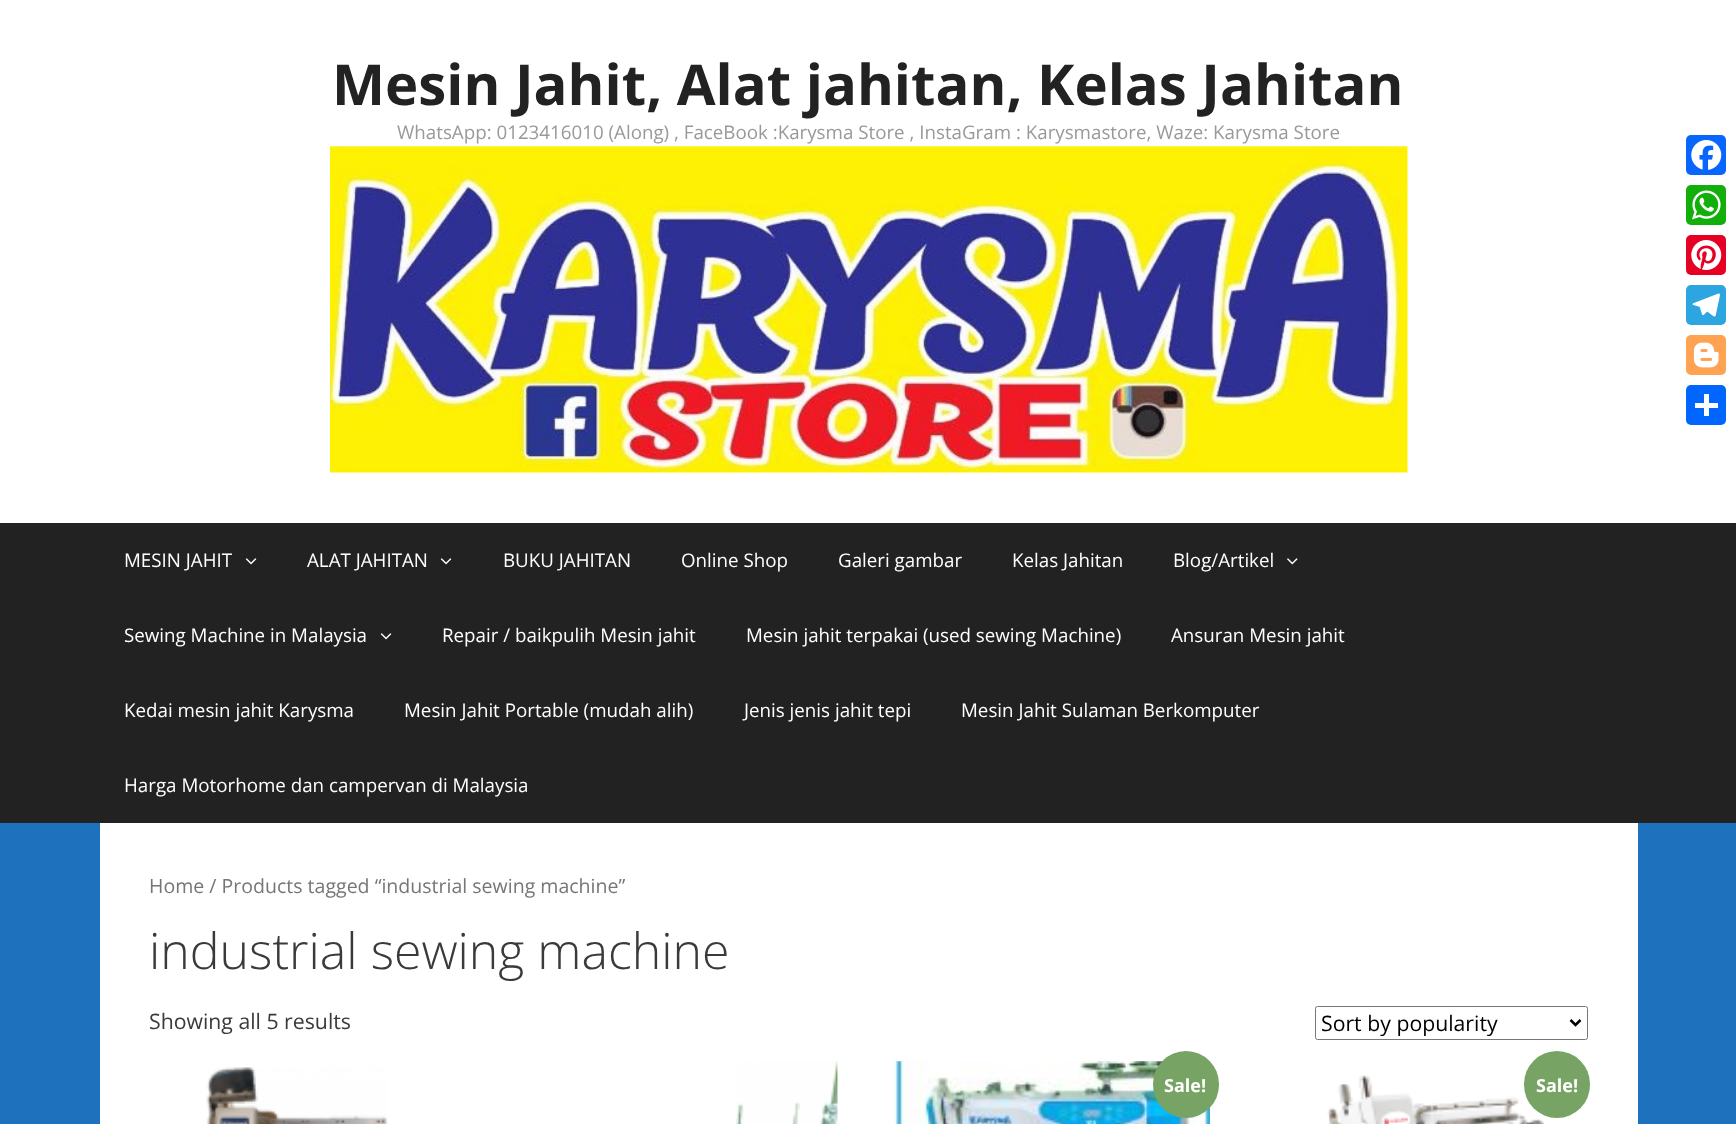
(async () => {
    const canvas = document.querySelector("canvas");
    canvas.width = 1736;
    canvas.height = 1124;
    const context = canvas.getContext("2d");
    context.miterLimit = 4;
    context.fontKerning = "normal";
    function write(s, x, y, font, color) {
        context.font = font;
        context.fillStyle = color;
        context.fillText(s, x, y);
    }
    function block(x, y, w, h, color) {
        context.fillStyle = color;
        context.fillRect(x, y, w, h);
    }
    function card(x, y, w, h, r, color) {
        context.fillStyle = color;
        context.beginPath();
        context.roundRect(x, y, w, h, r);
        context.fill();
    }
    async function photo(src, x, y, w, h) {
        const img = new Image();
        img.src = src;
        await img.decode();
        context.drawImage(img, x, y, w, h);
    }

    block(0, 0, 1736, 1124, "rgb(30, 114, 189)");
    block(0, 0, 1736, 523, "rgb(255, 255, 255)");
    write("Mesin Jahit, Alat jahitan, Kelas Jahitan", 332, 105, "bold 56.25px Open Sans", "rgb(34, 34, 34)");
    write("WhatsApp: 0123416010 (Along) , FaceBook :Karysma Store , InstaGram : Karysmastore, Waze: Karysma Store", 397, 139, "18.75px Open Sans", "rgb(153, 153, 153)");
    await photo("media/1.png", 330, 146, 1078, 327);
    card(1686, 135, 40, 40, 5, "rgb(8, 102, 255)");
    await photo("media/2.png", 1691, 140, 31, 30);
    card(1686, 185, 40, 40, 5, "rgb(18, 175, 10)");
    await photo("media/3.png", 1692, 190, 29, 30);
    card(1686, 235, 40, 40, 5, "rgb(230, 0, 35)");
    await photo("media/4.png", 1691, 240, 31, 30);
    card(1686, 285, 40, 40, 5, "rgb(44, 165, 224)");
    await photo("media/5.png", 1692, 293, 28, 24);
    card(1686, 335, 40, 40, 5, "rgb(253, 163, 82)");
    await photo("media/6.png", 1693, 342, 26, 26);
    card(1686, 385, 40, 40, 5, "rgb(1, 102, 255)");
    block(1704, 394, 5, 22, "rgb(255, 255, 255)");
    block(1695, 403, 23, 5, "rgb(255, 255, 255)");
    block(0, 523, 1736, 300, "rgb(34, 34, 34)");
    write("MESIN JAHIT", 124, 567, "18.75px Open Sans", "rgb(255, 255, 255)");
    await photo("media/7.png", 245, 558, 12, 7);
    write("ALAT JAHITAN", 307, 567, "18.75px Open Sans", "rgb(255, 255, 255)");
    await photo("media/7.png", 440, 558, 12, 7);
    write("BUKU JAHITAN", 503, 567, "18.75px Open Sans", "rgb(255, 255, 255)");
    write("Online Shop", 681, 567, "18.75px Open Sans", "rgb(255, 255, 255)");
    write("Galeri gambar", 838, 567, "18.75px Open Sans", "rgb(255, 255, 255)");
    write("Kelas Jahitan", 1012, 567, "18.75px Open Sans", "rgb(255, 255, 255)");
    write("Blog/Artikel", 1173, 567, "18.75px Open Sans", "rgb(255, 255, 255)");
    await photo("media/8.png", 1287, 558, 11, 7);
    write("Sewing Machine in Malaysia", 124, 642, "18.75px Open Sans", "rgb(255, 255, 255)");
    await photo("media/7.png", 380, 633, 12, 7);
    write("Repair / baikpulih Mesin jahit", 442, 642, "18.75px Open Sans", "rgb(255, 255, 255)");
    write("Mesin jahit terpakai (used sewing Machine)", 746, 642, "18.75px Open Sans", "rgb(255, 255, 255)");
    write("Ansuran Mesin jahit", 1171, 642, "18.75px Open Sans", "rgb(255, 255, 255)");
    write("Kedai mesin jahit Karysma", 124, 717, "18.75px Open Sans", "rgb(255, 255, 255)");
    write("Mesin Jahit Portable (mudah alih)", 404, 717, "18.75px Open Sans", "rgb(255, 255, 255)");
    write("Jenis jenis jahit tepi", 744, 717, "18.75px Open Sans", "rgb(255, 255, 255)");
    write("Mesin Jahit Sulaman Berkomputer", 961, 717, "18.75px Open Sans", "rgb(255, 255, 255)");
    write("Harga Motorhome dan campervan di Malaysia", 124, 792, "18.75px Open Sans", "rgb(255, 255, 255)");
    block(100, 823, 1538, 301, "rgb(255, 255, 255)");
    write("Home / Products tagged “industrial sewing machine”", 149, 893, "19.55px Open Sans", "rgb(118, 118, 118)");
    write("industrial sewing machine", 149, 969, "300 50px Open Sans", "rgb(58, 58, 58)");
    write("Showing all 5 results", 149, 1029, "21.25px Open Sans", "rgb(58, 58, 58)");
    context.beginPath();
    context.roundRect(1315.5, 1006.5, 272, 33, 2);
    context.strokeStyle = "rgb(118, 118, 118)";
    context.stroke();
    context.beginPath();
    context.moveTo(1570.5, 1020);
    context.lineTo(1575.5, 1025);
    context.lineTo(1580.5, 1020);
    context.strokeStyle = "rgb(0, 0, 0)";
    context.lineWidth = 2.5;
    context.stroke();
    write("Sort by popularity", 1321, 1031, "21.25px Open Sans", "rgb(0, 0, 0)");
    await photo("media/9.png", 206, 1067, 182, 57);
    await photo("media/10.png", 736, 1061, 102, 63);
    await photo("media/11.png", 894, 1061, 316, 63);
    card(1153, 1051, 66, 67, 33, "rgb(119, 164, 100)");
    write("Sale!", 1164, 1092, "bold 18px Open Sans", "rgb(255, 255, 255)");
    await photo("media/12.png", 1327, 1075, 217, 49);
    card(1524, 1051, 66, 67, 33, "rgb(119, 164, 100)");
    write("Sale!", 1536, 1092, "bold 18px Open Sans", "rgb(255, 255, 255)");
})();
